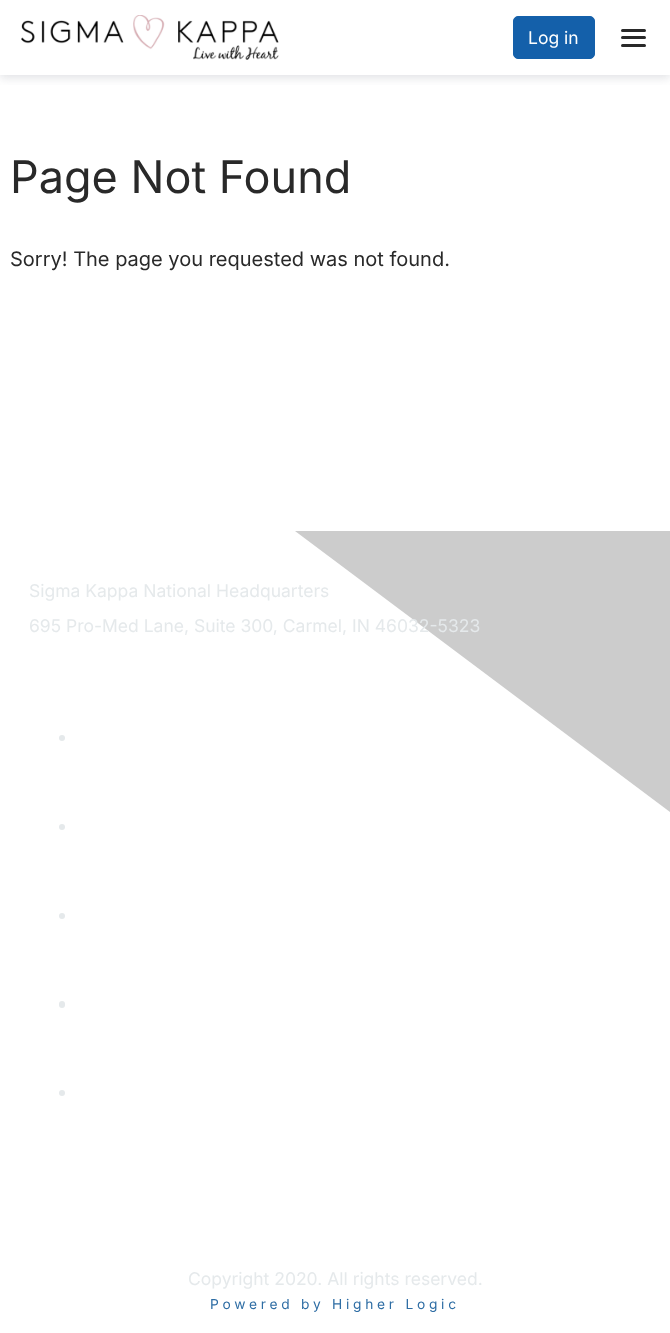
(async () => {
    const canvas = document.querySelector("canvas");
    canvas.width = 670;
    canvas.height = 1333;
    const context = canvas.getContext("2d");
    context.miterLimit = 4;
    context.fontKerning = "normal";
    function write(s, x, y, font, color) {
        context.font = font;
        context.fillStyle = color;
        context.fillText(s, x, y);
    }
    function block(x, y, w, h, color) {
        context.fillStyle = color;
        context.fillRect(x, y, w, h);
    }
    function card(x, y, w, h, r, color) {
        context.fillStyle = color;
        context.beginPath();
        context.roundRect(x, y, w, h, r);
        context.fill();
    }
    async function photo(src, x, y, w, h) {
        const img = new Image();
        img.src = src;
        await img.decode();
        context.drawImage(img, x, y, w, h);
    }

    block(0, 0, 670, 1333, "rgb(255, 255, 255)");
    context.save();
    context.beginPath();
    context.rect(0, 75, 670, 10);
    context.clip();
    context.fillStyle = "rgba(131, 135, 145, 0.24)";
    context.filter = "blur(5px)";
    context.beginPath();
    context.rect(0, 3, 670, 75);
    context.fill();
    context.filter = "none";
    context.restore();
    await photo("media/1.png", 21, 15, 258, 45);
    context.fillStyle = "rgb(20, 96, 170)";
    context.beginPath();
    context.roundRect(513.5, 16.5, 81, 42, 4.5);
    context.fill();
    context.strokeStyle = "rgb(20, 96, 170)";
    context.stroke();
    write("Log in", 528, 44, "17.5px Inter", "rgb(255, 255, 255)");
    card(621, 29, 25, 3, 1.5, "rgb(41, 41, 41)");
    card(621, 36, 25, 3, 1.5, "rgb(41, 41, 41)");
    card(621, 44, 25, 3, 1.5, "rgb(41, 41, 41)");
    write("Page Not Found", 10, 193, "45px Inter", "rgb(41, 41, 41)");
    write("Sorry! The page you requested was not found.", 10, 266, "20px Inter", "rgb(41, 41, 41)");
    context.fillStyle = "rgb(204, 204, 204)";
    context.beginPath();
    context.moveTo(670, 531);
    context.lineTo(670, 812);
    context.lineTo(295, 531);
    context.closePath();
    context.fill();
    write("Sigma Kappa National Headquarters", 29, 597, "17.5px Inter", "rgb(229, 233, 235)");
    write("695 Pro-Med Lane, Suite 300, Carmel, IN 46032-5323", 29, 632, "17.5px Inter", "rgb(229, 233, 235)");
    context.beginPath();
    context.arc(62, 738, 3, 0, Math.PI * 2);
    context.fill();
    context.beginPath();
    context.arc(62, 827, 3, 0, Math.PI * 2);
    context.fill();
    context.beginPath();
    context.arc(62, 916, 3, 0, Math.PI * 2);
    context.fill();
    card(59, 1001, 6, 7, 3, "rgb(229, 233, 235)");
    context.beginPath();
    context.arc(62, 1093, 3, 0, Math.PI * 2);
    context.fill();
    write("Copyright 2020. All rights reserved.", 188, 1285, "17.5px Inter", "rgb(229, 233, 235)");
    context.letterSpacing = "3.75px";
    write("Powered by Higher Logic", 210, 1309, "13.75px Inter", "rgb(46, 109, 164)");
})();
